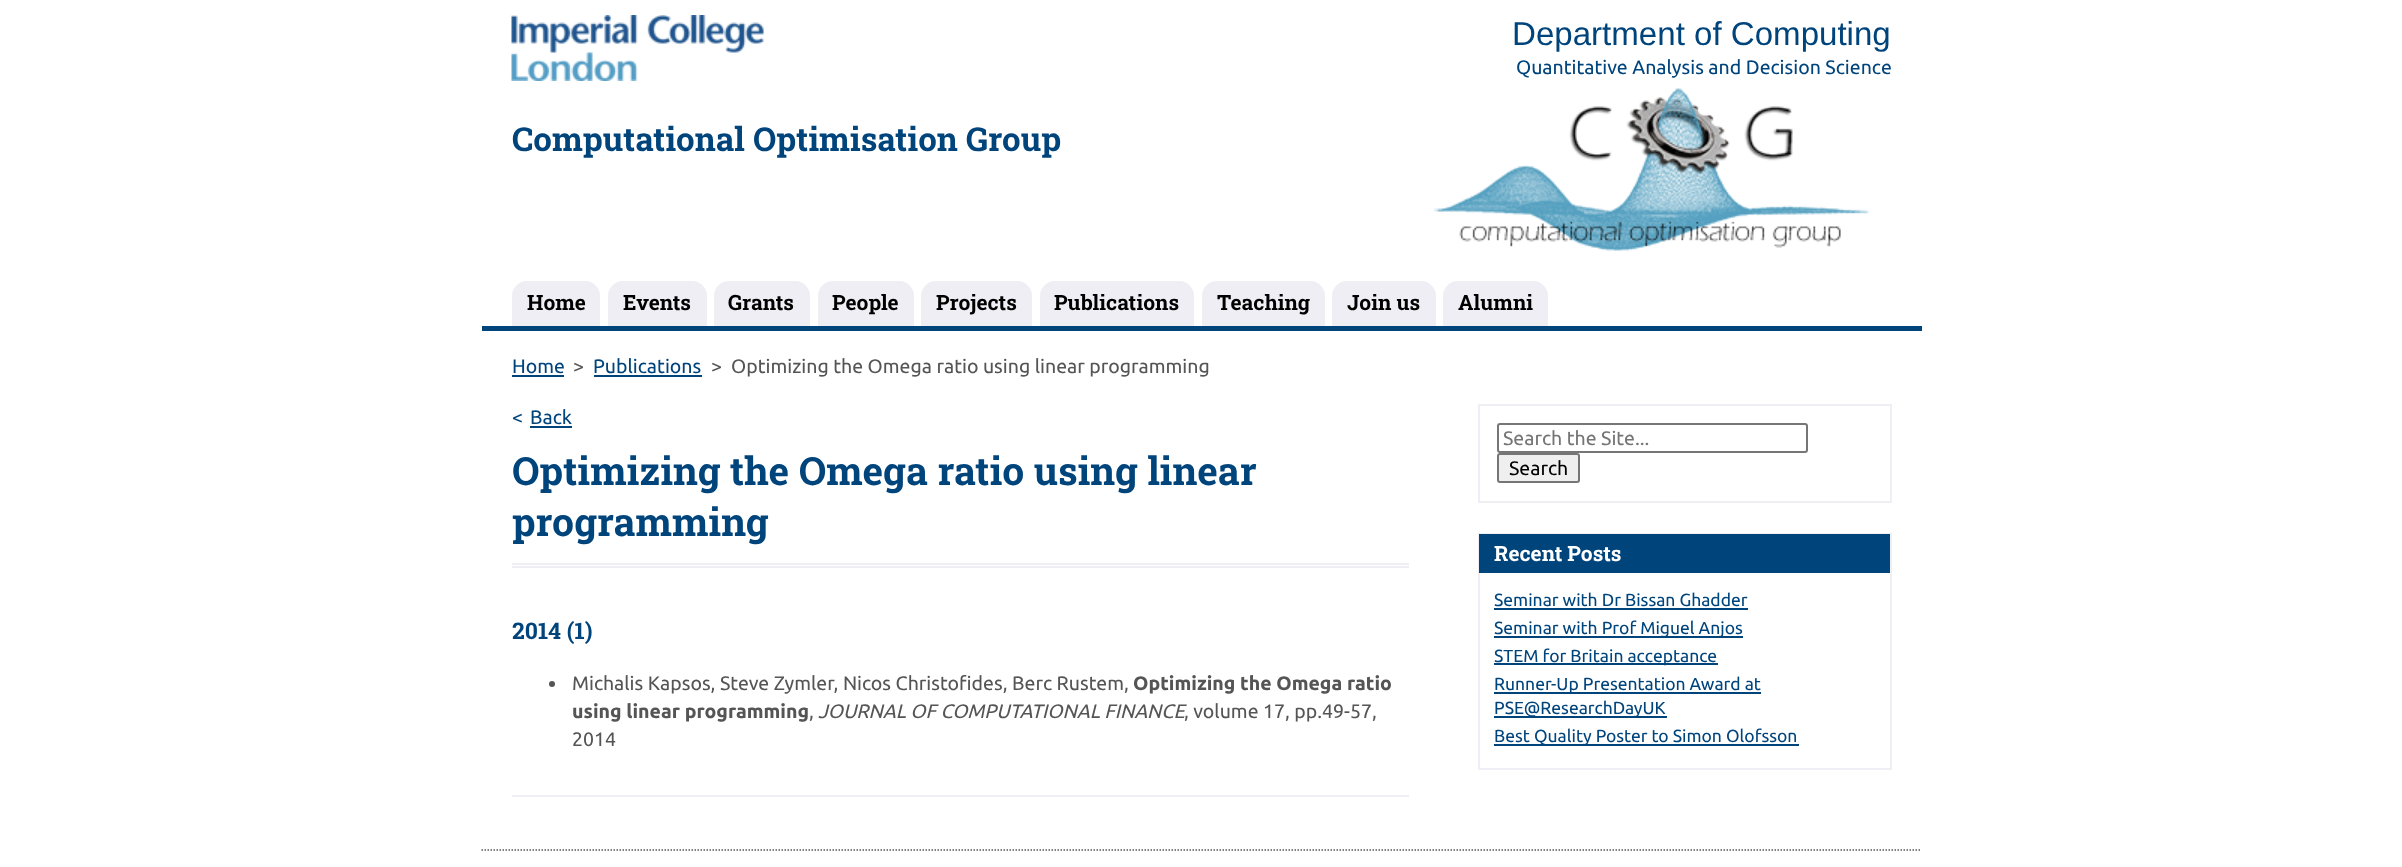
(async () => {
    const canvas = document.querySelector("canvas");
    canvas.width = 2402;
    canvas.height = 867;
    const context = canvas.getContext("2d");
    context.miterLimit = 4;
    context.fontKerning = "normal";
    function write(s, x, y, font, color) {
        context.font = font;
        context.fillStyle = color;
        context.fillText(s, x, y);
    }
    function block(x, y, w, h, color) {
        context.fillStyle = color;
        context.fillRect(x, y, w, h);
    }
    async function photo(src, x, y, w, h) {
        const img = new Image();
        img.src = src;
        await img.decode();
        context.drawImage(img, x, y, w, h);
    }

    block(0, 0, 2402, 867, "rgb(255, 255, 255)");
    await photo("media/1.png", 511, 15, 253, 66);
    write("Department of Computing", 1512, 45, "33.1px Liberation Sans", "rgb(0, 68, 124)");
    write("Quantitative Analysis and Decision Science", 1516, 74, "19.5px Ubuntu", "rgb(0, 68, 124)");
    write("Computational Optimisation Group", 512, 151, "bold 33px Roboto Slab", "rgb(0, 68, 124)");
    await photo("media/2.png", 1434, 88, 435, 163);
    block(482, 326, 1440, 5, "rgb(0, 68, 124)");
    context.fillStyle = "rgb(238, 238, 244)";
    context.beginPath();
    context.roundRect(512, 281, 88, 45, [15, 15, 0, 0]);
    context.fill();
    write("Home", 527, 310, "bold 21px Roboto Slab", "rgb(0, 0, 0)");
    context.fillStyle = "rgb(238, 238, 244)";
    context.beginPath();
    context.roundRect(608, 281, 99, 45, [15, 15, 0, 0]);
    context.fill();
    write("Events", 623, 310, "bold 21px Roboto Slab", "rgb(0, 0, 0)");
    context.fillStyle = "rgb(238, 238, 244)";
    context.beginPath();
    context.roundRect(714, 281, 96, 45, [15, 15, 0, 0]);
    context.fill();
    write("Grants", 728, 310, "bold 21px Roboto Slab", "rgb(0, 0, 0)");
    context.fillStyle = "rgb(238, 238, 244)";
    context.beginPath();
    context.roundRect(818, 281, 96, 45, [15, 15, 0, 0]);
    context.fill();
    write("People", 832, 310, "bold 21px Roboto Slab", "rgb(0, 0, 0)");
    context.fillStyle = "rgb(238, 238, 244)";
    context.beginPath();
    context.roundRect(921, 281, 111, 45, [15, 15, 0, 0]);
    context.fill();
    write("Projects", 936, 310, "bold 21px Roboto Slab", "rgb(0, 0, 0)");
    context.fillStyle = "rgb(238, 238, 244)";
    context.beginPath();
    context.roundRect(1040, 281, 154, 45, [15, 15, 0, 0]);
    context.fill();
    write("Publications", 1054, 310, "bold 21px Roboto Slab", "rgb(0, 0, 0)");
    context.fillStyle = "rgb(238, 238, 244)";
    context.beginPath();
    context.roundRect(1202, 281, 123, 45, [15, 15, 0, 0]);
    context.fill();
    write("Teaching", 1217, 310, "bold 21px Roboto Slab", "rgb(0, 0, 0)");
    context.fillStyle = "rgb(238, 238, 244)";
    context.beginPath();
    context.roundRect(1332, 281, 104, 45, [15, 15, 0, 0]);
    context.fill();
    write("Join us", 1347, 310, "bold 21px Roboto Slab", "rgb(0, 0, 0)");
    context.fillStyle = "rgb(238, 238, 244)";
    context.beginPath();
    context.roundRect(1443, 281, 105, 45, [15, 15, 0, 0]);
    context.fill();
    write("Alumni", 1458, 310, "bold 21px Roboto Slab", "rgb(0, 0, 0)");
    write("Home", 512, 373, "19.5px Ubuntu", "rgb(0, 68, 124)");
    block(512, 375, 52, 2, "rgb(0, 68, 124)");
    write(">", 573, 373, "19.5px Ubuntu", "rgb(85, 85, 85)");
    write("Publications", 593, 373, "19.5px Ubuntu", "rgb(0, 68, 124)");
    block(594, 375, 108, 2, "rgb(0, 68, 124)");
    write(">", 711, 373, "19.5px Ubuntu", "rgb(85, 85, 85)");
    write("Optimizing the Omega ratio using linear programming", 731, 373, "19.5px Ubuntu", "rgb(85, 85, 85)");
    write("<", 512, 424, "19.5px Ubuntu", "rgb(0, 68, 124)");
    write("Back", 530, 424, "19.5px Ubuntu", "rgb(0, 68, 124)");
    block(530, 426, 42, 2, "rgb(0, 68, 124)");
    block(512, 795, 897, 2, "rgb(238, 238, 244)");
    block(512, 563, 897, 2, "rgb(238, 238, 244)");
    block(512, 566, 897, 2, "rgb(238, 238, 244)");
    write("Optimizing the Omega ratio using linear", 512, 485, "bold 39px Roboto Slab", "rgb(0, 68, 124)");
    write("programming", 512, 536, "bold 39px Roboto Slab", "rgb(0, 68, 124)");
    write("2014 (1)", 512, 639, "bold 23px Roboto Slab", "rgb(0, 68, 124)");
    context.fillStyle = "rgb(85, 85, 85)";
    context.beginPath();
    context.arc(552, 684, 3, 0, Math.PI * 2);
    context.fill();
    write("Michalis Kapsos, Steve Zymler, Nicos Christofides, Berc Rustem,", 572, 690, "19.5px Ubuntu", "rgb(85, 85, 85)");
    write("Optimizing the Omega ratio", 1133, 690, "bold 19.5px Ubuntu", "rgb(85, 85, 85)");
    write("using linear programming", 572, 718, "bold 19.5px Ubuntu", "rgb(85, 85, 85)");
    write(",", 809, 718, "19.5px Ubuntu", "rgb(85, 85, 85)");
    write("JOURNAL OF COMPUTATIONAL FINANCE", 818, 718, "italic 19.5px Ubuntu", "rgb(85, 85, 85)");
    write(", volume 17, pp.49-57,", 1184, 718, "19.5px Ubuntu", "rgb(85, 85, 85)");
    write("2014", 572, 746, "19.5px Ubuntu", "rgb(85, 85, 85)");
    context.strokeStyle = "rgb(238, 238, 244)";
    context.lineWidth = 2;
    context.strokeRect(1479, 405, 412, 97);
    context.beginPath();
    context.roundRect(1498, 424, 309, 28, 2);
    context.strokeStyle = "rgb(118, 118, 118)";
    context.stroke();
    write("Search the Site...", 1503, 445, "19.5px Ubuntu", "rgb(117, 117, 117)");
    context.fillStyle = "rgb(239, 239, 239)";
    context.beginPath();
    context.roundRect(1498, 454, 81, 28, 2);
    context.fill();
    context.stroke();
    write("Search", 1509, 475, "19.5px Ubuntu", "rgb(0, 0, 0)");
    context.strokeStyle = "rgb(238, 238, 244)";
    context.strokeRect(1479, 534, 412, 235);
    block(1479, 534, 411, 39, "rgb(0, 68, 124)");
    write("Recent Posts", 1494, 561, "bold 21px Roboto Slab", "rgb(255, 255, 255)");
    write("Seminar with Dr Bissan Ghadder", 1494, 606, "17.5px Ubuntu", "rgb(0, 68, 124)");
    block(1494, 608, 254, 2, "rgb(0, 68, 124)");
    block(1494, 636, 249, 2, "rgb(0, 68, 124)");
    write("Seminar with Prof Miguel Anjos", 1494, 634, "17.5px Ubuntu", "rgb(0, 68, 124)");
    block(1494, 663, 224, 2, "rgb(0, 68, 124)");
    write("STEM for Britain acceptance", 1494, 662, "17.5px Ubuntu", "rgb(0, 68, 124)");
    block(1494, 692, 267, 2, "rgb(0, 68, 124)");
    write("Runner-Up Presentation Award at", 1494, 690, "17.5px Ubuntu", "rgb(0, 68, 124)");
    block(1494, 716, 173, 2, "rgb(0, 68, 124)");
    write("PSE@ResearchDayUK", 1494, 714, "17.5px Ubuntu", "rgb(0, 68, 124)");
    block(1494, 744, 305, 2, "rgb(0, 68, 124)");
    write("Best Quality Poster to Simon Olofsson", 1494, 742, "17.5px Ubuntu", "rgb(0, 68, 124)");
    context.beginPath();
    context.moveTo(481.5, 850);
    context.lineTo(1921.5, 850);
    context.strokeStyle = "rgb(85, 85, 85)";
    context.lineWidth = 1.5;
    context.setLineDash([1.5, 1.5]);
    context.stroke();
})();
